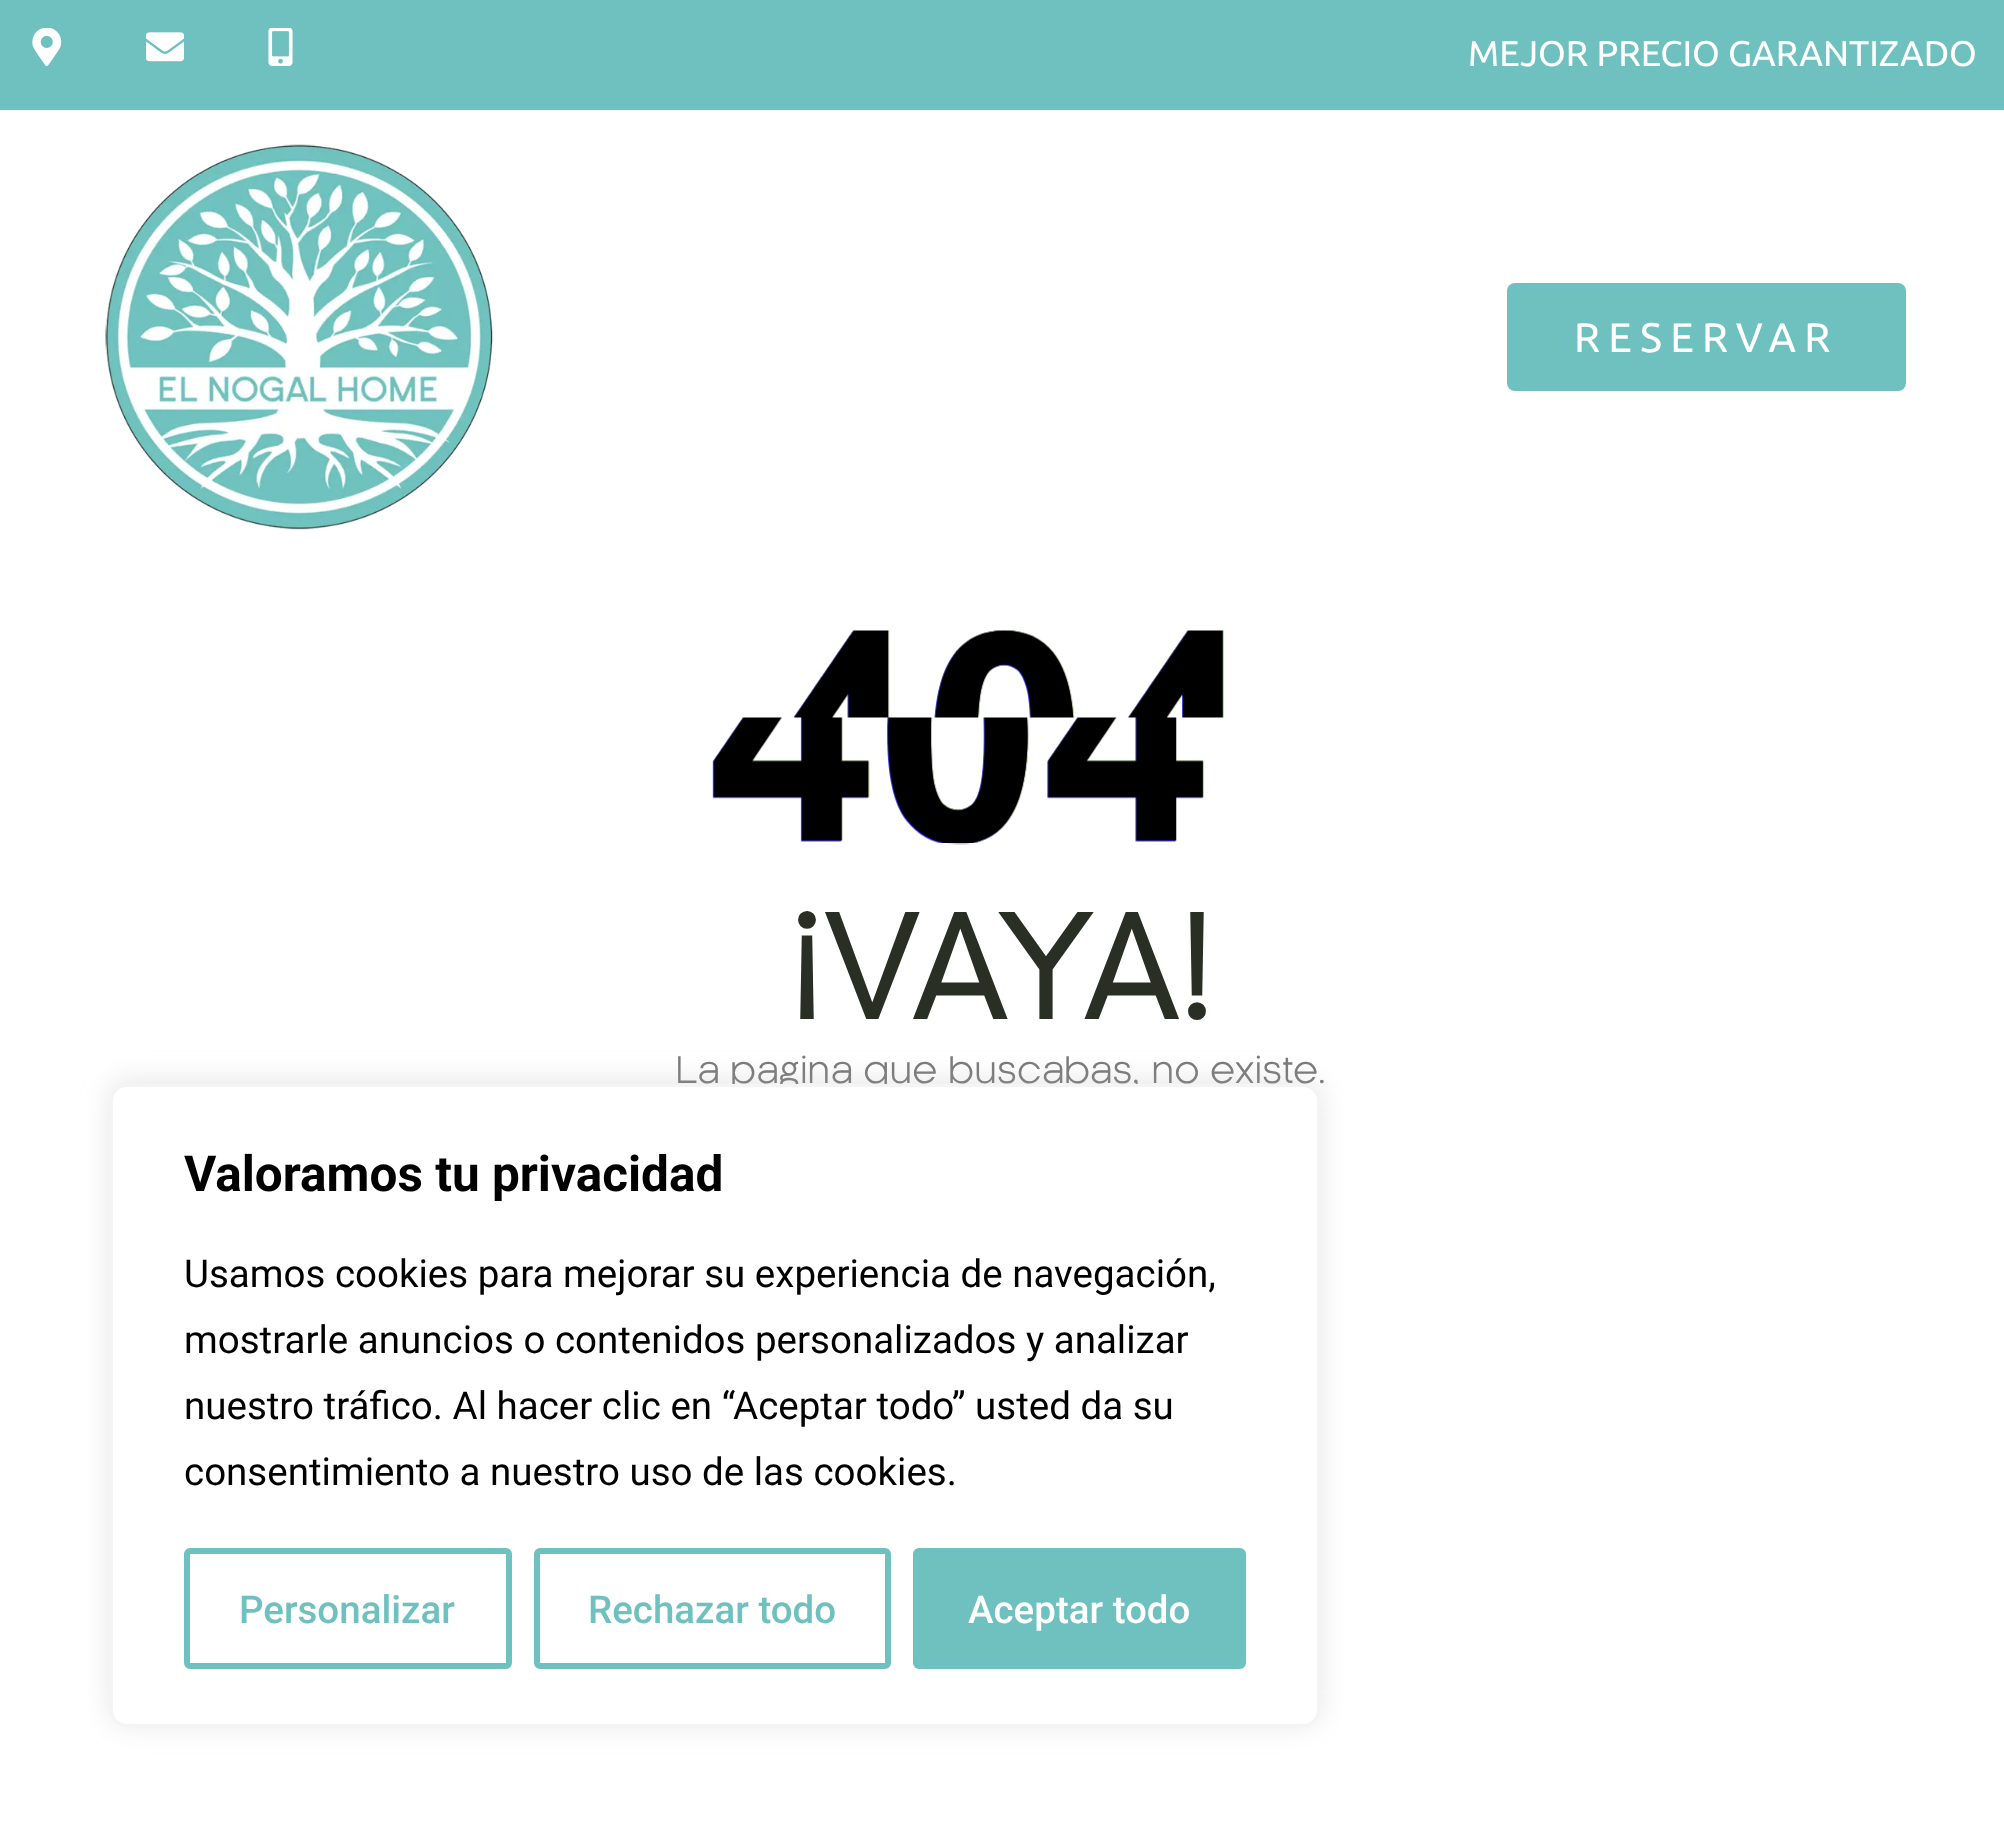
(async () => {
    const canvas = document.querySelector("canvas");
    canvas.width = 2004;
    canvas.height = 1835;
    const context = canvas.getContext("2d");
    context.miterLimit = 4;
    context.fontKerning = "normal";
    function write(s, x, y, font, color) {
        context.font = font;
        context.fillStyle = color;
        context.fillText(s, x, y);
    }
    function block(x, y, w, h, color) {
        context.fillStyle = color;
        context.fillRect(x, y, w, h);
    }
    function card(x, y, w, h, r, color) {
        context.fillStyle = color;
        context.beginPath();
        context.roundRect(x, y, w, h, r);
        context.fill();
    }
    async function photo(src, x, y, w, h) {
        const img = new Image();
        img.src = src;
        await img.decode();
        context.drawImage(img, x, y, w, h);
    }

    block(0, 0, 2004, 1835, "rgb(255, 255, 255)");
    block(0, 0, 2004, 110, "rgb(111, 193, 191)");
    await photo("media/1.png", 32, 28, 30, 38);
    await photo("media/2.png", 146, 32, 38, 30);
    await photo("media/3.png", 268, 28, 25, 38);
    write("MEJOR PRECIO GARANTIZADO", 1468, 66, "35.75px Ubuntu", "rgb(255, 255, 255)");
    await photo("media/4.png", 105, 144, 389, 386);
    card(1507, 283, 399, 108, 8, "rgb(111, 193, 191)");
    context.letterSpacing = "8.25px";
    write("RESERVAR", 1574, 352, "41.25px Ubuntu", "rgb(255, 255, 255)");
    await photo("media/5.png", 712, 630, 512, 215);
    context.letterSpacing = "5.5px";
    write("¡VAYA!", 792, 1019, "bold 137.5px 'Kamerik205'", "rgb(41, 47, 36)");
    context.letterSpacing = "0.7px";
    write("La pagina que buscabas, no existe.", 676, 1083, "35.75px 'Kamerik205'", "rgb(122, 122, 122)");
    context.fillStyle = "rgba(172, 171, 171, 0.3)";
    context.filter = "blur(14px)";
    context.beginPath();
    context.roundRect(110, 1081, 1210, 643, 17);
    context.fill();
    context.filter = "none";
    context.fillStyle = "rgb(255, 255, 255)";
    context.beginPath();
    context.roundRect(111.5, 1085.5, 1207, 640, 15.5);
    context.fill();
    context.strokeStyle = "rgb(244, 244, 244)";
    context.lineWidth = 3;
    context.stroke();
    context.letterSpacing = "0px";
    write("Valoramos tu privacidad", 184, 1191, "bold 49.5px Roboto", "rgb(0, 0, 0)");
    write("Usamos cookies para mejorar su experiencia de navegación,", 184, 1287, "38.5px Roboto", "rgb(0, 0, 0)");
    write("mostrarle anuncios o contenidos personalizados y analizar", 184, 1353, "38.5px Roboto", "rgb(0, 0, 0)");
    write("nuestro tráfico. Al hacer clic en “Aceptar todo” usted da su", 184, 1419, "38.5px Roboto", "rgb(0, 0, 0)");
    write("consentimiento a nuestro uso de las cookies.", 184, 1485, "38.5px Roboto", "rgb(0, 0, 0)");
    context.beginPath();
    context.roundRect(187, 1551, 322, 115, 3);
    context.strokeStyle = "rgb(111, 193, 191)";
    context.lineWidth = 6;
    context.stroke();
    write("Personalizar", 239, 1623, "500 38.5px Roboto", "rgb(111, 193, 191)");
    context.beginPath();
    context.roundRect(537, 1551, 351, 115, 3);
    context.stroke();
    write("Rechazar todo", 588, 1623, "500 38.5px Roboto", "rgb(111, 193, 191)");
    context.beginPath();
    context.roundRect(916, 1551, 327, 115, 3);
    context.fill();
    context.stroke();
    write("Aceptar todo", 968, 1623, "500 38.5px Roboto", "rgb(255, 255, 255)");
})();
